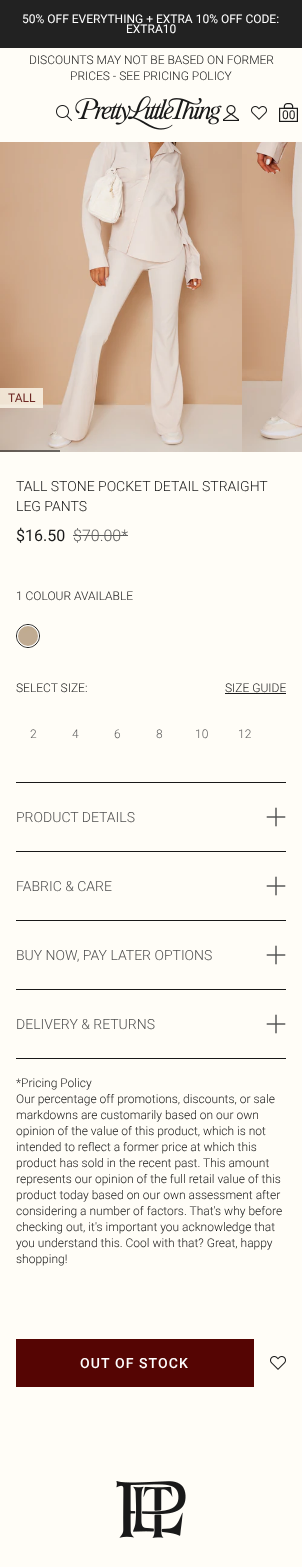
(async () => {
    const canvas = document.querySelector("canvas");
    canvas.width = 302;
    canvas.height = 1567;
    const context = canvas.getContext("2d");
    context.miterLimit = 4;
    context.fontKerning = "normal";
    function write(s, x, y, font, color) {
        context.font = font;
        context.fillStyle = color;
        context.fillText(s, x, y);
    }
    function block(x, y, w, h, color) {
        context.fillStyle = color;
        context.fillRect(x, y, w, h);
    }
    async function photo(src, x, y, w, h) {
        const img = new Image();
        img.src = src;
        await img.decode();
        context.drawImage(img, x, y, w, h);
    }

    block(0, 0, 302, 1567, "rgb(255, 253, 247)");
    block(0, 0, 302, 48, "rgb(34, 34, 34)");
    write("50% OFF EVERYTHING + EXTRA 10% OFF CODE:", 22, 23, "12px Roboto", "rgb(255, 255, 255)");
    write("EXTRA10", 126, 33, "12px Roboto", "rgb(255, 255, 255)");
    write("DISCOUNTS MAY NOT BE BASED ON FORMER", 29, 64, "300 12px Roboto", "rgb(25, 25, 25)");
    write("PRICES - SEE PRICING POLICY", 70, 80, "300 12px Roboto", "rgb(25, 25, 25)");
    await photo("media/1.png", 56, 105, 16, 16);
    await photo("media/2.png", 75, 96, 147, 34);
    await photo("media/3.png", 223, 105, 16, 16);
    await photo("media/4.png", 251, 106, 16, 14);
    await photo("media/5.png", 279, 103, 19, 19);
    write("00", 282, 119, "12px Roboto", "rgb(25, 25, 25)");
    await photo("media/6.png", 0, 142, 242, 310);
    await photo("media/7.png", 242, 142, 60, 310);
    block(0, 450, 60, 2, "rgba(0, 0, 0, 0.5)");
    block(0, 388, 43, 20, "rgba(250, 245, 231, 0.85)");
    write("TALL", 8, 402, "12px Roboto", "rgb(108, 39, 35)");
    write("TALL STONE POCKET DETAIL STRAIGHT", 16, 491, "300 14px Roboto", "rgb(25, 25, 25)");
    write("LEG PANTS", 16, 511, "300 14px Roboto", "rgb(25, 25, 25)");
    write("$16.50", 16, 541, "16px Roboto", "rgb(25, 25, 25)");
    write("$70.00*", 73, 541, "300 16px Roboto", "rgb(93, 93, 93)");
    block(73, 535, 55, 1, "rgb(93, 93, 93)");
    write("1 COLOUR AVAILABLE", 16, 600, "300 12px Roboto", "rgb(25, 25, 25)");
    context.beginPath();
    context.arc(28, 636, 11.5, 0, Math.PI * 2);
    context.strokeStyle = "rgb(25, 25, 25)";
    context.stroke();
    context.beginPath();
    context.arc(28, 636, 10.5, 0, Math.PI * 2);
    context.strokeStyle = "rgb(250, 250, 250)";
    context.stroke();
    await photo("media/8.png", 18, 626, 20, 20);
    write("SELECT SIZE:", 16, 692, "300 12px Roboto", "rgb(25, 25, 25)");
    write("SIZE GUIDE", 225, 692, "300 12px Roboto", "rgb(25, 25, 25)");
    block(225, 693, 61, 1, "rgb(25, 25, 25)");
    write("2", 30, 738, "300 12px Roboto", "rgb(93, 93, 93)");
    write("4", 72, 738, "300 12px Roboto", "rgb(93, 93, 93)");
    write("6", 114, 738, "300 12px Roboto", "rgb(93, 93, 93)");
    write("8", 156, 738, "300 12px Roboto", "rgb(93, 93, 93)");
    write("10", 195, 738, "300 12px Roboto", "rgb(93, 93, 93)");
    write("12", 238, 738, "300 12px Roboto", "rgb(93, 93, 93)");
    block(16, 782, 270, 1, "rgb(25, 25, 25)");
    write("PRODUCT DETAILS", 16, 822, "300 14px Roboto", "rgb(81, 81, 81)");
    await photo("media/9.png", 266, 807, 20, 20);
    block(16, 851, 270, 1, "rgb(25, 25, 25)");
    write("FABRIC & CARE", 16, 891, "300 14px Roboto", "rgb(81, 81, 81)");
    await photo("media/9.png", 266, 876, 20, 20);
    block(16, 920, 270, 1, "rgb(25, 25, 25)");
    write("BUY NOW, PAY LATER OPTIONS", 16, 960, "300 14px Roboto", "rgb(81, 81, 81)");
    await photo("media/9.png", 266, 945, 20, 20);
    block(16, 989, 270, 1, "rgb(25, 25, 25)");
    block(16, 1058, 270, 1, "rgb(25, 25, 25)");
    write("DELIVERY & RETURNS", 16, 1029, "300 14px Roboto", "rgb(81, 81, 81)");
    await photo("media/9.png", 266, 1014, 20, 20);
    write("*Pricing Policy", 16, 1087, "300 12px Roboto", "rgb(25, 25, 25)");
    write("Our percentage off promotions, discounts, or sale", 16, 1103, "300 12px Roboto", "rgb(25, 25, 25)");
    write("markdowns are customarily based on our own", 16, 1119, "300 12px Roboto", "rgb(25, 25, 25)");
    write("opinion of the value of this product, which is not", 16, 1135, "300 12px Roboto", "rgb(25, 25, 25)");
    write("intended to reflect a former price at which this", 16, 1151, "300 12px Roboto", "rgb(25, 25, 25)");
    write("product has sold in the recent past. This amount", 16, 1167, "300 12px Roboto", "rgb(25, 25, 25)");
    write("represents our opinion of the full retail value of this", 16, 1183, "300 12px Roboto", "rgb(25, 25, 25)");
    write("product today based on our own assessment after", 16, 1199, "300 12px Roboto", "rgb(25, 25, 25)");
    write("considering a number of factors. That's why before", 16, 1215, "300 12px Roboto", "rgb(25, 25, 25)");
    write("checking out, it's important you acknowledge that", 16, 1231, "300 12px Roboto", "rgb(25, 25, 25)");
    write("you understand this. Cool with that? Great, happy", 16, 1247, "300 12px Roboto", "rgb(25, 25, 25)");
    write("shopping!", 16, 1263, "300 12px Roboto", "rgb(25, 25, 25)");
    block(16, 1339, 238, 48, "rgb(85, 5, 3)");
    context.letterSpacing = "1.1px";
    write("OUT OF STOCK", 80, 1368, "500 14px Roboto", "rgb(255, 255, 255)");
    await photo("media/4.png", 270, 1356, 16, 14);
    await photo("media/10.png", 116, 1481, 70, 57);
})();
